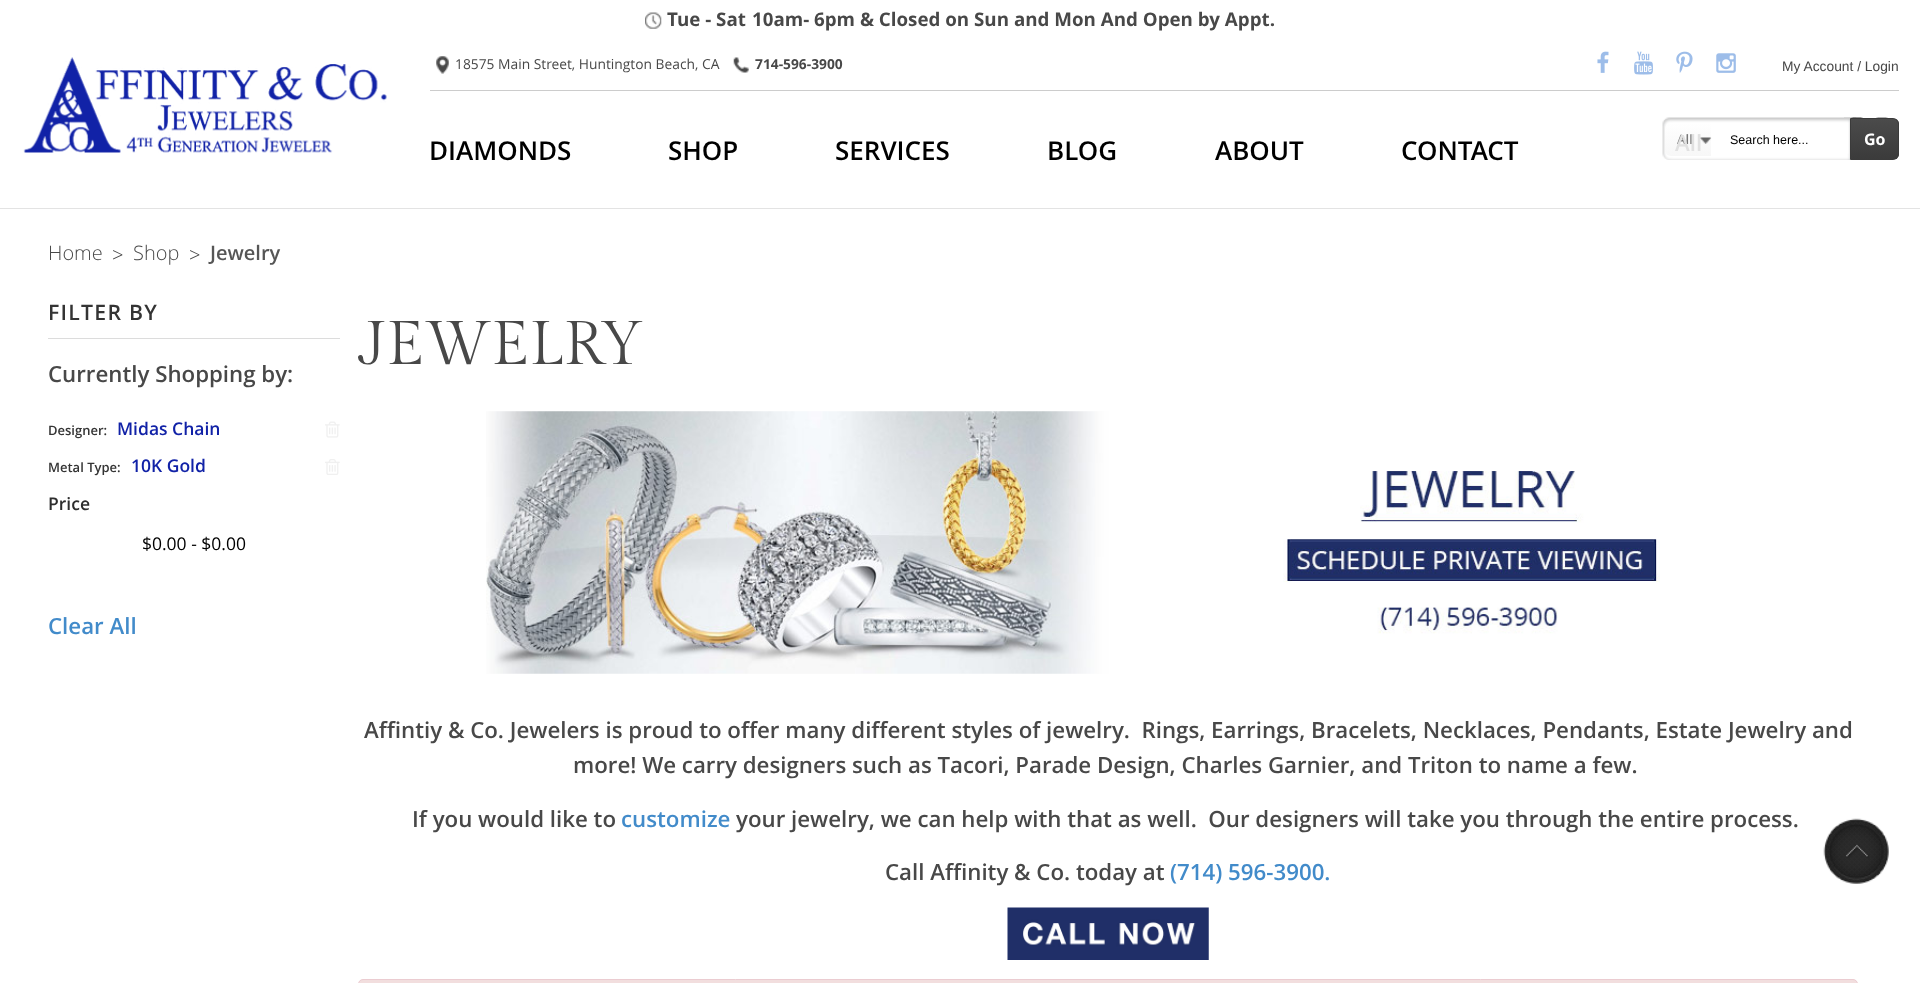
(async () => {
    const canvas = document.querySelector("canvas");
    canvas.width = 1920;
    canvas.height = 983;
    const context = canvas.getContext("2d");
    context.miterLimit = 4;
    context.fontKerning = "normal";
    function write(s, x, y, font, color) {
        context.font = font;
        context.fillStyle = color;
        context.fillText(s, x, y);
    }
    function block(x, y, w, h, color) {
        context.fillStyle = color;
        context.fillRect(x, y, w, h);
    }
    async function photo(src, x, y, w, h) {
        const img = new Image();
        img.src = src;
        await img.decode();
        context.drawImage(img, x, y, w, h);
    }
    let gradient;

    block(0, 0, 1920, 983, "rgb(255, 255, 255)");
    block(0, 208, 1920, 1, "rgb(227, 227, 227)");
    await photo("media/1.png", 645, 12, 17, 17);
    write("Tue - Sat", 667, 26, "bold 18.75px Open Sans", "rgb(72, 72, 72)");
    write("10am- 6pm & Closed on Sun and Mon And Open by Appt.", 752, 26, "bold 18.75px Open Sans", "rgb(72, 72, 72)");
    await photo("media/2.png", 23, 57, 364, 96);
    block(430, 90, 1469, 1, "rgb(204, 204, 204)");
    await photo("media/3.png", 436, 56, 13, 18);
    write("18575 Main Street, Huntington Beach, CA", 455, 69, "13.8px Open Sans", "rgb(72, 72, 72)");
    await photo("media/4.png", 733, 57, 16, 16);
    write("714-596-3900", 755, 69, "bold 13.8px Open Sans", "rgb(72, 72, 72)");
    await photo("media/5.png", 1597, 51, 12, 22);
    await photo("media/6.png", 1634, 51, 19, 24);
    await photo("media/7.png", 1676, 51, 17, 22);
    await photo("media/8.png", 1716, 53, 20, 20);
    write("My Account / Login", 1782, 71, "13.8px Liberation Sans", "rgb(72, 72, 72)");
    write("DIAMONDS", 429, 160, "600 26px 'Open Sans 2'", "rgb(0, 0, 0)");
    write("SHOP", 668, 160, "600 26px 'Open Sans 2'", "rgb(0, 0, 0)");
    write("SERVICES", 835, 160, "600 26px 'Open Sans 2'", "rgb(0, 0, 0)");
    write("BLOG", 1047, 160, "600 26px 'Open Sans 2'", "rgb(0, 0, 0)");
    write("ABOUT", 1215, 160, "600 26px 'Open Sans 2'", "rgb(0, 0, 0)");
    write("CONTACT", 1401, 160, "600 26px 'Open Sans 2'", "rgb(0, 0, 0)");
    await photo("media/9.png", 1662, 117, 195, 43);
    gradient = context.createLinearGradient(1695, 123, 1695, 156);
    gradient.addColorStop(0, "rgb(255, 255, 255)");
    gradient.addColorStop(1, "rgb(247, 247, 247)");
    context.fillStyle = gradient;
    context.beginPath();
    context.roundRect(1665, 123, 46, 33, [6, 0, 0, 6]);
    context.fill();
    write("All", 1677, 144, "600 13px Open Sans", "rgb(119, 119, 119)");
    await photo("media/10.png", 1700, 137, 12, 7);
    write("All", 1675, 151, "600 22.27px Open Sans", "rgb(225, 225, 225)");
    write("Search here...", 1730, 144, "12.5px Liberation Sans", "rgb(0, 0, 0)");
    await photo("media/11.png", 1844, 117, 44, 43);
    context.save();
    context.beginPath();
    context.roundRect(1850, 118, 49, 42, [0, 6, 6, 0]);
    context.clip();
    gradient = context.createLinearGradient(1874, 119, 1874, 159);
    gradient.addColorStop(0, "rgb(75, 75, 75)");
    gradient.addColorStop(1, "rgb(59, 59, 59)");
    context.fillStyle = gradient;
    context.fillRect(1851, 119, 48, 40);
    context.restore();
    context.beginPath();
    context.roundRect(1850.5, 118.5, 48, 41, [0, 5.5, 5.5, 0]);
    context.strokeStyle = "rgb(59, 59, 59)";
    context.stroke();
    write("Go", 1864, 145, "bold 16px 'Open Sans 2'", "rgb(255, 255, 255)");
    write("Home", 48, 260, "300 20px Open Sans", "rgb(72, 72, 72)");
    write(">", 112, 262, "300 20px 'Open Sans 2'", "rgb(72, 72, 72)");
    write("Shop", 133, 260, "300 20px Open Sans", "rgb(72, 72, 72)");
    write(">", 189, 262, "300 20px 'Open Sans 2'", "rgb(72, 72, 72)");
    write("Jewelry", 210, 260, "600 20px Open Sans", "rgb(86, 86, 86)");
    block(48, 338, 292, 1, "rgb(220, 220, 220)");
    context.letterSpacing = "1.25px";
    write("FILTER BY", 48, 320, "600 21.25px Open Sans", "rgb(52, 52, 52)");
    context.letterSpacing = "0px";
    write("Currently Shopping by:", 48, 382, "600 22.27px Open Sans", "rgb(72, 72, 72)");
    write("Designer:", 48, 435, "600 13px Open Sans", "rgb(52, 52, 52)");
    write("Midas Chain", 117, 435, "600 17.5px Open Sans", "rgb(17, 34, 167)");
    await photo("media/12.png", 325, 421, 15, 17);
    write("Metal Type:", 48, 472, "600 13px Open Sans", "rgb(52, 52, 52)");
    write("10K Gold", 131, 472, "600 17.5px Open Sans", "rgb(17, 34, 167)");
    await photo("media/13.png", 325, 459, 15, 16);
    write("Price", 48, 510, "600 17.5px Open Sans", "rgb(45, 45, 45)");
    write("$0.00 - $0.00", 142, 550, "17.5px 'Open Sans 2'", "rgb(0, 0, 0)");
    write("Clear All", 48, 634, "600 22.27px Open Sans", "rgb(66, 139, 202)");
    write("JEWELRY", 358, 364, "61.5px Gilda Display", "rgb(72, 72, 72)");
    await photo("media/14.png", 486, 411, 1174, 263);
    write("Affintiy & Co. Jewelers is proud to offer many different styles of jewelry.  Rings, Earrings, Bracelets, Necklaces, Pendants, Estate Jewelry and", 364, 738, "600 22.27px Open Sans", "rgb(72, 72, 72)");
    write("more! We carry designers such as Tacori, Parade Design, Charles Garnier, and Triton to name a few.", 573, 773, "600 22.27px Open Sans", "rgb(72, 72, 72)");
    write("If you would like to", 412, 827, "600 22.27px Open Sans", "rgb(72, 72, 72)");
    write("customize", 621, 827, "600 22.27px Open Sans", "rgb(66, 139, 202)");
    write("your jewelry, we can help with that as well.  Our designers will take you through the entire process.", 736, 827, "600 22.27px Open Sans", "rgb(72, 72, 72)");
    write("Call Affinity & Co. today at", 885, 880, "600 22.27px Open Sans", "rgb(72, 72, 72)");
    write("(714) 596-3900.", 1170, 880, "600 22.27px Open Sans", "rgb(66, 139, 202)");
    await photo("media/15.png", 1007, 907, 202, 53);
    context.fillStyle = "rgb(242, 222, 222)";
    context.beginPath();
    context.roundRect(358.5, 979.5, 1499, 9, 4.5);
    context.fill();
    context.strokeStyle = "rgb(235, 204, 209)";
    context.stroke();
    await photo("media/16.png", 1823, 818, 66, 66);
})();
